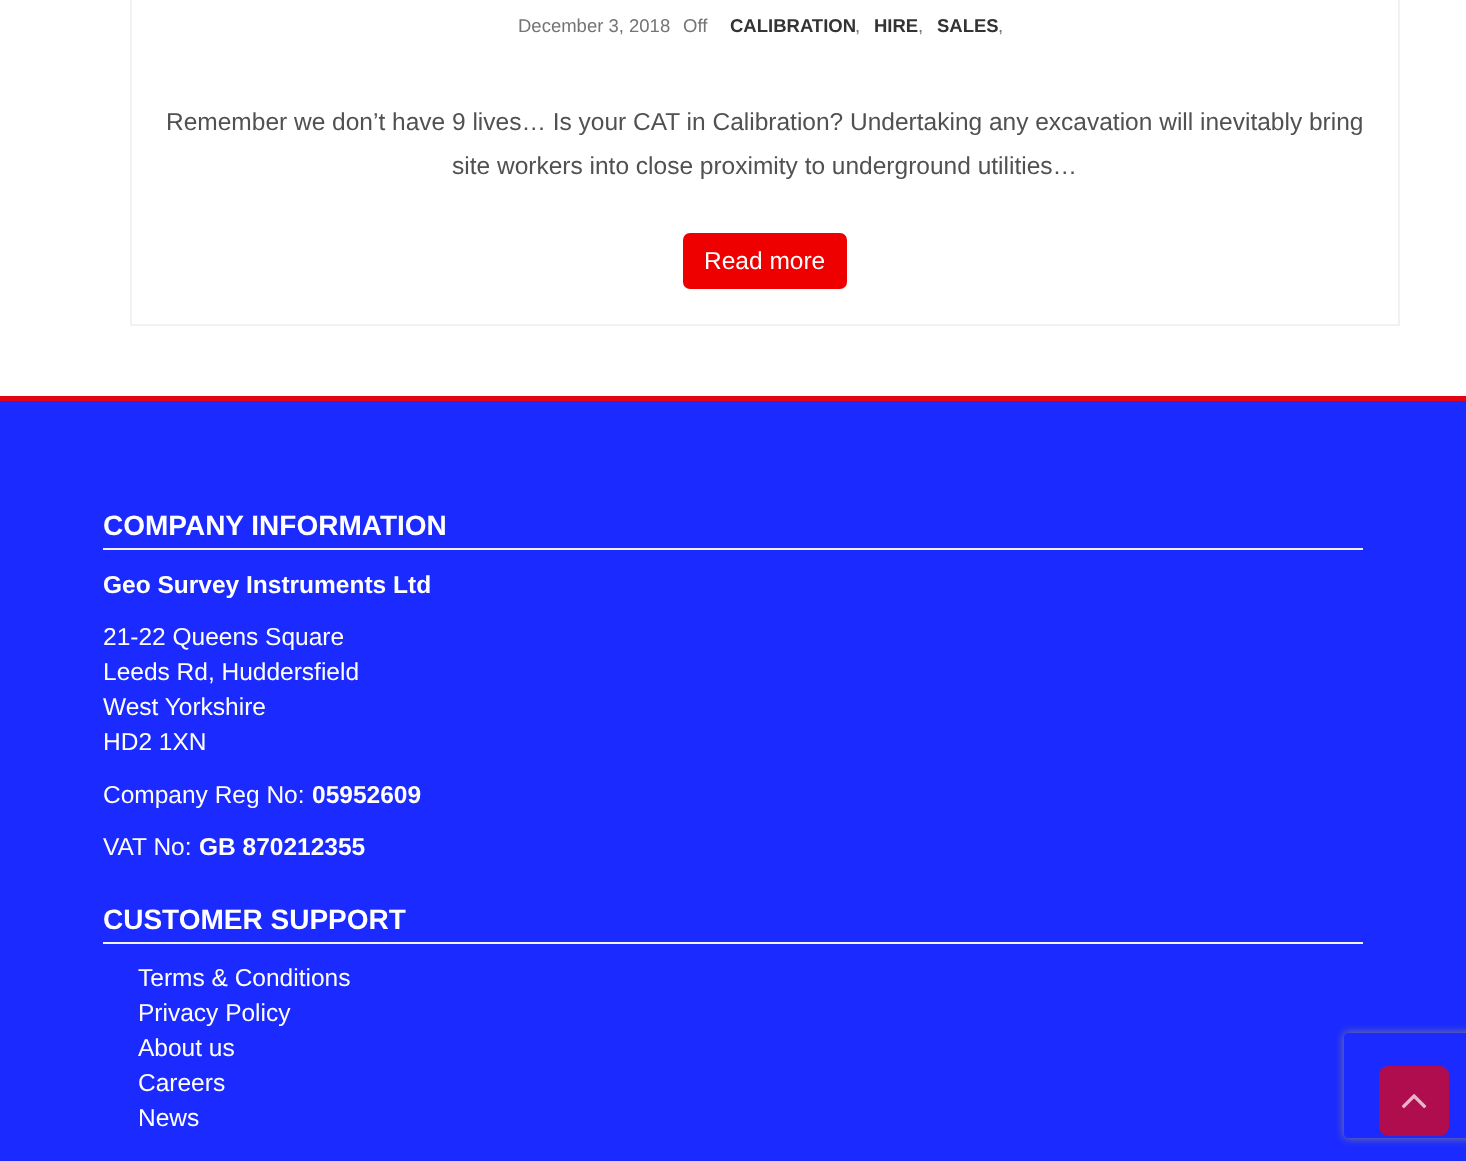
(async () => {
    const canvas = document.querySelector("canvas");
    canvas.width = 1466;
    canvas.height = 1161;
    const context = canvas.getContext("2d");
    context.miterLimit = 4;
    context.fontKerning = "normal";
    function write(s, x, y, font, color) {
        context.font = font;
        context.fillStyle = color;
        context.fillText(s, x, y);
    }
    function block(x, y, w, h, color) {
        context.fillStyle = color;
        context.fillRect(x, y, w, h);
    }
    function card(x, y, w, h, r, color) {
        context.fillStyle = color;
        context.beginPath();
        context.roundRect(x, y, w, h, r);
        context.fill();
    }
    async function photo(src, x, y, w, h) {
        const img = new Image();
        img.src = src;
        await img.decode();
        context.drawImage(img, x, y, w, h);
    }

    block(0, 0, 1466, 1161, "rgb(255, 255, 255)");
    context.strokeStyle = "rgb(241, 241, 241)";
    context.lineWidth = 2;
    context.strokeRect(131, -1, 1268, 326);
    write("December 3, 2018", 518, 32, "18.5px Liberation Sans", "rgb(116, 116, 116)");
    write("Off", 683, 32, "18.5px Liberation Sans", "rgb(116, 116, 116)");
    write("CALIBRATION", 730, 32, "bold 18.5px Liberation Sans", "rgb(51, 51, 51)");
    write(",", 855, 32, "18.5px Liberation Sans", "rgb(116, 116, 116)");
    write("HIRE", 874, 32, "bold 18.5px Liberation Sans", "rgb(51, 51, 51)");
    write(",", 918, 32, "18.5px Liberation Sans", "rgb(116, 116, 116)");
    write("SALES", 937, 32, "bold 18.5px Liberation Sans", "rgb(51, 51, 51)");
    write(",", 998, 32, "18.5px Liberation Sans", "rgb(116, 116, 116)");
    write("Remember we don’t have 9 lives… Is your CAT in Calibration? Undertaking any excavation will inevitably bring", 166, 130, "24.5px Liberation Sans", "rgb(81, 81, 81)");
    write("site workers into close proximity to underground utilities…", 452, 174, "24.5px Liberation Sans", "rgb(81, 81, 81)");
    card(683, 233, 164, 56, 7, "rgb(239, 0, 0)");
    write("Read more", 704, 269, "24.5px Liberation Sans", "rgb(255, 255, 255)");
    block(0, 401, 1466, 760, "rgb(27, 43, 255)");
    block(0, 396, 1466, 5, "rgb(226, 6, 19)");
    block(103, 548, 1260, 2, "rgb(241, 241, 241)");
    write("COMPANY INFORMATION", 103, 535, "bold 28px Liberation Sans", "rgb(255, 255, 255)");
    write("Geo Survey Instruments Ltd", 103, 593, "bold 24.5px Liberation Sans", "rgb(255, 255, 255)");
    write("21-22 Queens Square", 103, 645, "24.5px Liberation Sans", "rgb(255, 255, 255)");
    write("Leeds Rd, Huddersfield", 103, 680, "24.5px Liberation Sans", "rgb(255, 255, 255)");
    write("West Yorkshire", 103, 715, "24.5px Liberation Sans", "rgb(255, 255, 255)");
    write("HD2 1XN", 103, 750, "24.5px Liberation Sans", "rgb(255, 255, 255)");
    write("Company Reg No:", 103, 803, "24.5px Liberation Sans", "rgb(255, 255, 255)");
    write("05952609", 312, 803, "bold 24.5px Liberation Sans", "rgb(255, 255, 255)");
    write("VAT No:", 103, 855, "24.5px Liberation Sans", "rgb(255, 255, 255)");
    write("GB 870212355", 199, 855, "bold 24.5px Liberation Sans", "rgb(255, 255, 255)");
    block(103, 942, 1260, 2, "rgb(241, 241, 241)");
    write("CUSTOMER SUPPORT", 103, 929, "bold 28px Liberation Sans", "rgb(255, 255, 255)");
    write("Terms & Conditions", 138, 986, "24.5px Liberation Sans", "rgb(255, 255, 255)");
    write("Privacy Policy", 138, 1021, "24.5px Liberation Sans", "rgb(255, 255, 255)");
    write("About us", 138, 1056, "24.5px Liberation Sans", "rgb(255, 255, 255)");
    write("Careers", 138, 1091, "24.5px Liberation Sans", "rgb(255, 255, 255)");
    write("News", 138, 1126, "24.5px Liberation Sans", "rgb(255, 255, 255)");
    context.save();
    context.beginPath();
    context.moveTo(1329, 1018);
    context.lineTo(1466, 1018);
    context.lineTo(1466, 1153);
    context.lineTo(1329, 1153);
    context.closePath();
    context.moveTo(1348, 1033);
    context.lineTo(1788, 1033);
    context.bezierCurveTo(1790, 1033, 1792, 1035, 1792, 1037);
    context.lineTo(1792, 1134);
    context.bezierCurveTo(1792, 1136, 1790, 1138, 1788, 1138);
    context.lineTo(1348, 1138);
    context.bezierCurveTo(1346, 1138, 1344, 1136, 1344, 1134);
    context.lineTo(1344, 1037);
    context.bezierCurveTo(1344, 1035, 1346, 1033, 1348, 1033);
    context.closePath();
    context.clip("evenodd");
    context.fillStyle = "rgb(128, 128, 128)";
    context.filter = "blur(4.5px)";
    context.beginPath();
    context.roundRect(1344, 1033, 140, 105, 4);
    context.fill();
    context.filter = "none";
    context.restore();
    card(1379, 1066, 70, 70, 9, "rgb(175, 13, 77)");
    await photo("media/1.png", 1401, 1094, 26, 15);
})();
